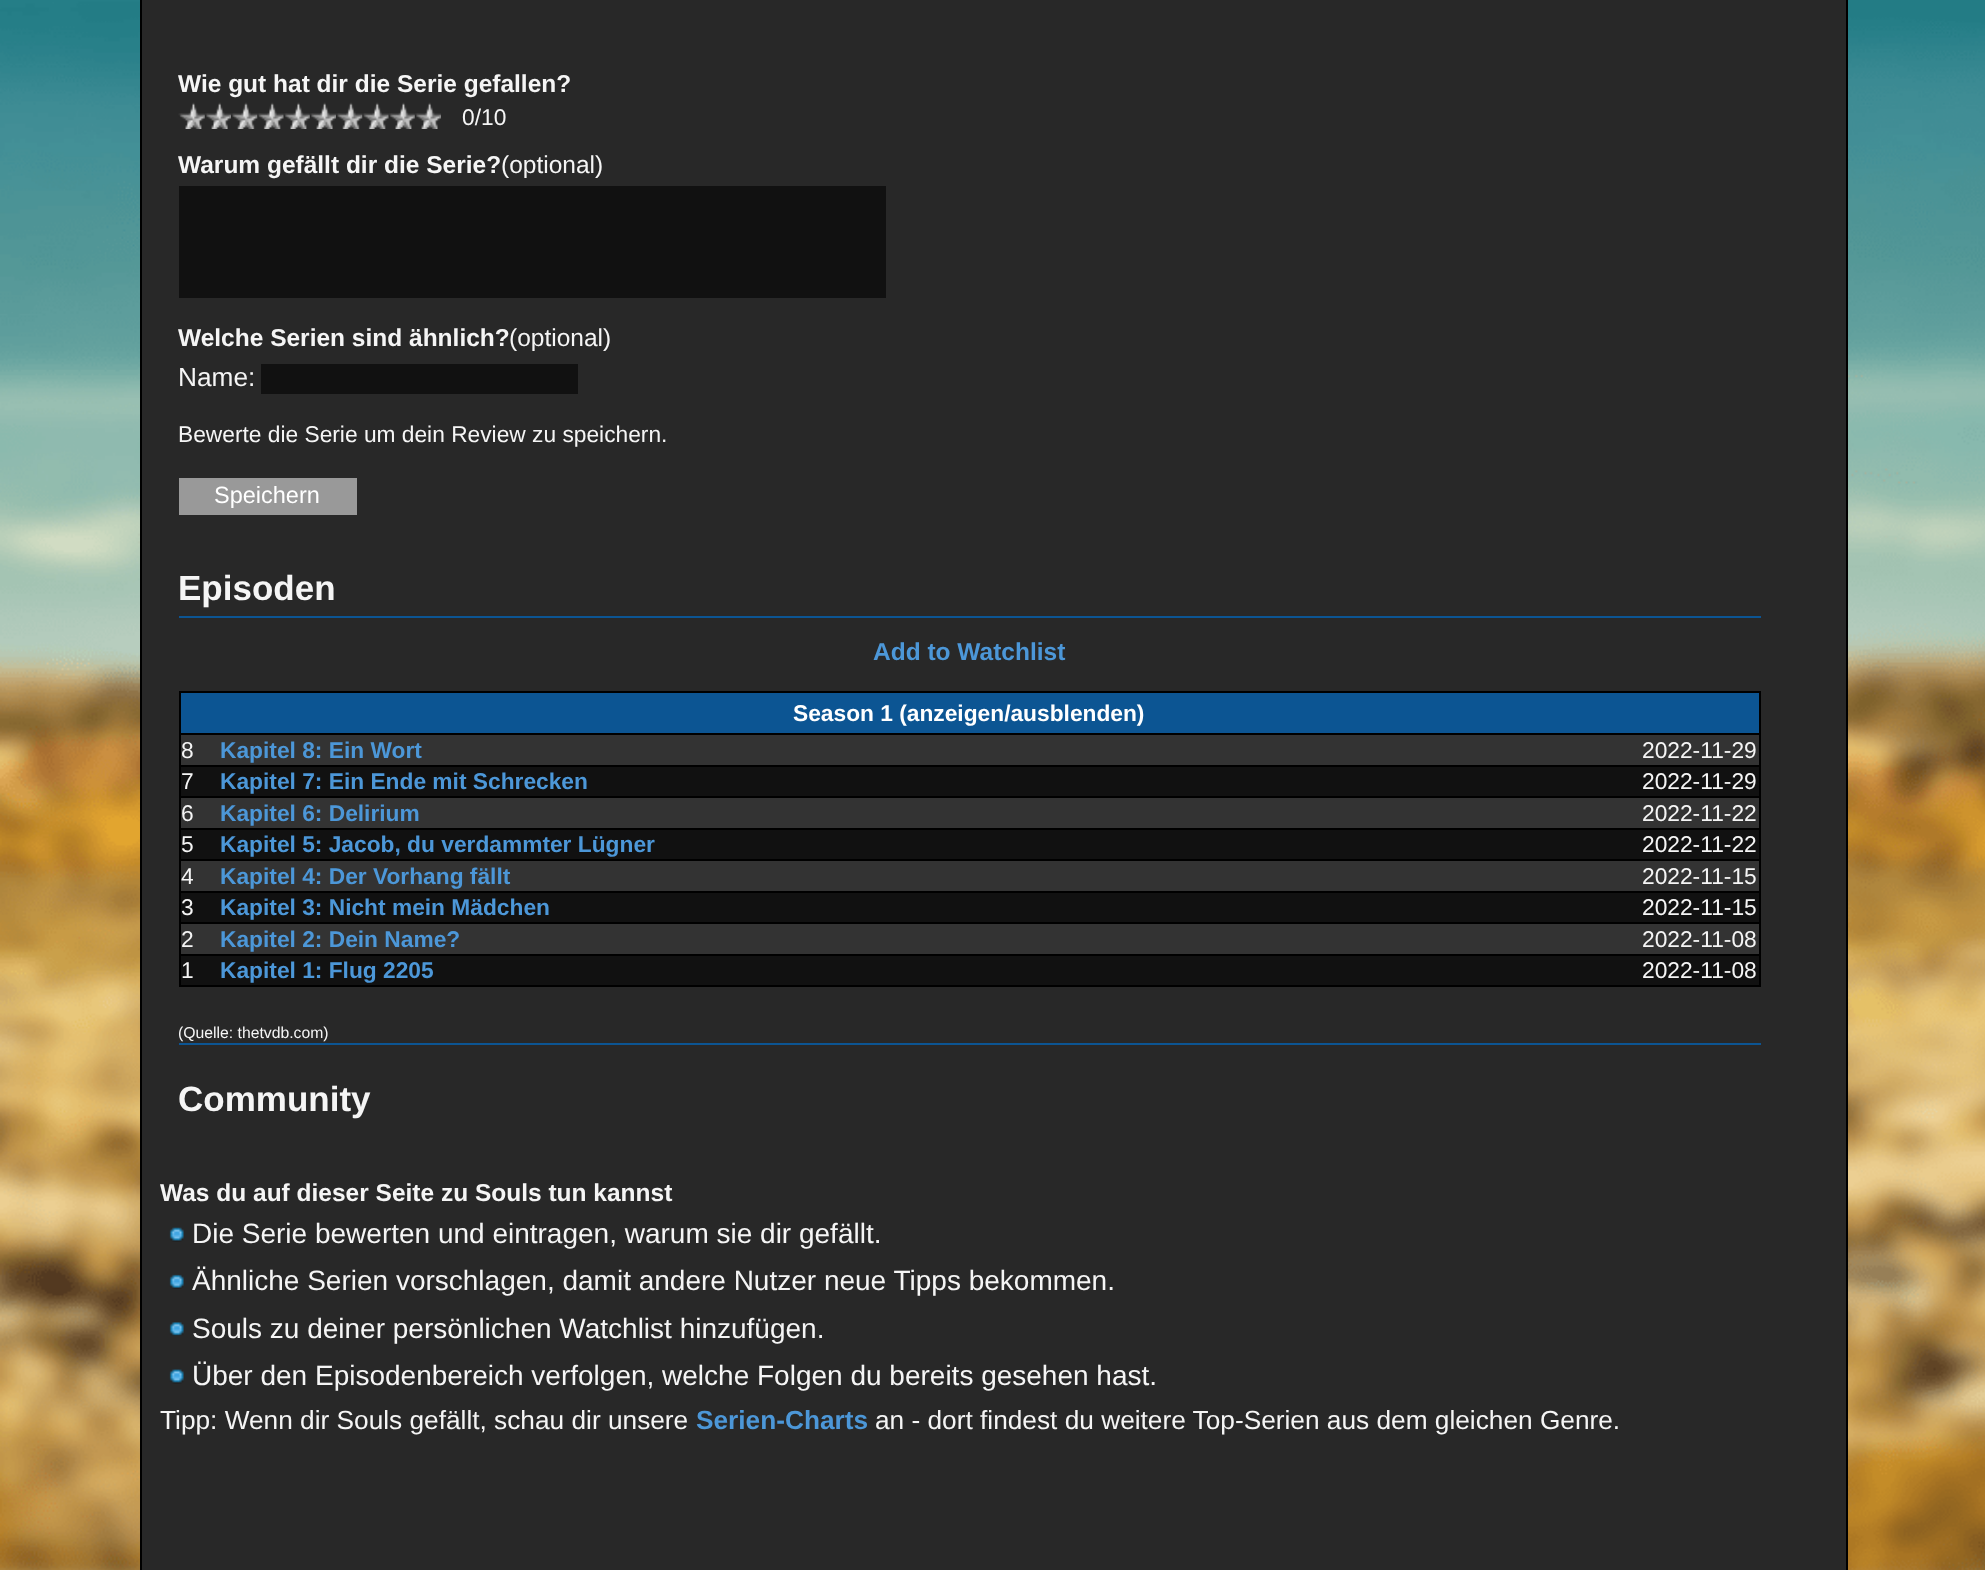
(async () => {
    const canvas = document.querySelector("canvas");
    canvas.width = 1985;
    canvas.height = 1570;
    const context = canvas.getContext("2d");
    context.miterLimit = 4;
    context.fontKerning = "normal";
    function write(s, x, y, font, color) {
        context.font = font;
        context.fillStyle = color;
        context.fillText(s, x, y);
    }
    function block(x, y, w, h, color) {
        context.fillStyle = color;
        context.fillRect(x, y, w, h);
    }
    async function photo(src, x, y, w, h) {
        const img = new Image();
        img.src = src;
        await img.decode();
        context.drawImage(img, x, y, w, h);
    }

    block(0, 0, 1985, 1570, "rgb(255, 255, 255)");
    await photo("media/1.png", 0, 0, 1985, 1570);
    block(142, 0, 1704, 1570, "rgb(40, 40, 40)");
    block(1846, 0, 2, 1570, "rgb(0, 0, 0)");
    block(140, 0, 2, 1570, "rgb(0, 0, 0)");
    write("Wie gut hat dir die Serie gefallen?", 178, 92, "bold 24.5px Liberation Sans", "rgb(245, 245, 245)");
    await photo("media/2.png", 178, 102, 27, 27);
    await photo("media/3.png", 205, 102, 26, 27);
    await photo("media/4.png", 231, 102, 27, 27);
    await photo("media/5.png", 257, 102, 27, 27);
    await photo("media/6.png", 283, 102, 27, 27);
    await photo("media/7.png", 310, 102, 26, 27);
    await photo("media/4.png", 336, 102, 27, 27);
    await photo("media/8.png", 362, 102, 27, 27);
    await photo("media/9.png", 388, 102, 27, 27);
    await photo("media/7.png", 415, 102, 26, 27);
    write("0/10", 462, 125, "22.75px Liberation Sans", "rgb(245, 245, 245)");
    write("Warum gefällt dir die Serie?", 178, 173, "bold 24.5px Liberation Sans", "rgb(245, 245, 245)");
    write("(optional)", 501, 173, "24.5px Liberation Sans", "rgb(245, 245, 245)");
    block(179, 186, 707, 112, "rgb(17, 17, 17)");
    write("Welche Serien sind ähnlich?", 178, 346, "bold 24.5px Liberation Sans", "rgb(245, 245, 245)");
    write("(optional)", 509, 346, "24.5px Liberation Sans", "rgb(245, 245, 245)");
    write("Name:", 178, 386, "26.25px Liberation Sans", "rgb(245, 245, 245)");
    block(261, 364, 317, 30, "rgb(17, 17, 17)");
    write("Bewerte die Serie um dein Review zu speichern.", 178, 442, "22.75px Liberation Sans", "rgb(245, 245, 245)");
    block(179, 478, 178, 37, "rgb(153, 153, 153)");
    write("Speichern", 214, 503, "23.5px Liberation Sans", "rgb(255, 255, 255)");
    write("Episoden", 178, 600, "bold 35px Liberation Sans", "rgb(245, 245, 245)");
    block(179, 616, 1582, 2, "rgb(12, 85, 147)");
    write("Add to Watchlist", 873, 660, "bold 24.5px Liberation Sans", "rgb(76, 151, 216)");
    block(179, 691, 1582, 2, "rgb(0, 0, 0)");
    block(179, 733, 1582, 2, "rgb(0, 0, 0)");
    block(179, 765, 1582, 2, "rgb(0, 0, 0)");
    block(179, 796, 1582, 2, "rgb(0, 0, 0)");
    block(179, 828, 1582, 2, "rgb(0, 0, 0)");
    block(179, 859, 1582, 2, "rgb(0, 0, 0)");
    block(179, 891, 1582, 2, "rgb(0, 0, 0)");
    block(179, 922, 1582, 2, "rgb(0, 0, 0)");
    block(179, 954, 1582, 2, "rgb(0, 0, 0)");
    block(1759, 954, 2, 33, "rgb(0, 0, 0)");
    block(1759, 922, 2, 34, "rgb(0, 0, 0)");
    block(1759, 891, 2, 33, "rgb(0, 0, 0)");
    block(1759, 859, 2, 34, "rgb(0, 0, 0)");
    block(1759, 828, 2, 33, "rgb(0, 0, 0)");
    block(1759, 796, 2, 34, "rgb(0, 0, 0)");
    block(1759, 765, 2, 33, "rgb(0, 0, 0)");
    block(1759, 733, 2, 34, "rgb(0, 0, 0)");
    block(1759, 691, 2, 44, "rgb(0, 0, 0)");
    block(179, 985, 1582, 2, "rgb(0, 0, 0)");
    block(179, 954, 2, 33, "rgb(0, 0, 0)");
    block(179, 922, 2, 34, "rgb(0, 0, 0)");
    block(179, 891, 2, 33, "rgb(0, 0, 0)");
    block(179, 859, 2, 34, "rgb(0, 0, 0)");
    block(179, 828, 2, 33, "rgb(0, 0, 0)");
    block(179, 796, 2, 34, "rgb(0, 0, 0)");
    block(179, 765, 2, 33, "rgb(0, 0, 0)");
    block(179, 733, 2, 34, "rgb(0, 0, 0)");
    block(179, 691, 2, 44, "rgb(0, 0, 0)");
    block(181, 693, 1578, 40, "rgb(12, 85, 147)");
    write("Season 1 (anzeigen/ausblenden)", 793, 721, "bold 22.75px Liberation Sans", "rgb(255, 255, 255)");
    block(181, 735, 1578, 30, "rgb(51, 51, 51)");
    write("8", 181, 758, "22.75px Liberation Sans", "rgb(245, 245, 245)");
    write("Kapitel 8: Ein Wort", 220, 758, "bold 22.75px Liberation Sans", "rgb(76, 151, 216)");
    write("2022-11-29", 1642, 758, "22.75px Liberation Sans", "rgb(245, 245, 245)");
    block(181, 767, 1578, 29, "rgb(17, 17, 17)");
    write("7", 181, 789, "22.75px Liberation Sans", "rgb(245, 245, 245)");
    write("Kapitel 7: Ein Ende mit Schrecken", 220, 789, "bold 22.75px Liberation Sans", "rgb(76, 151, 216)");
    write("2022-11-29", 1642, 789, "22.75px Liberation Sans", "rgb(245, 245, 245)");
    block(181, 798, 1578, 30, "rgb(51, 51, 51)");
    write("6", 181, 821, "22.75px Liberation Sans", "rgb(245, 245, 245)");
    write("Kapitel 6: Delirium", 220, 821, "bold 22.75px Liberation Sans", "rgb(76, 151, 216)");
    write("2022-11-22", 1642, 821, "22.75px Liberation Sans", "rgb(245, 245, 245)");
    block(181, 830, 1578, 29, "rgb(17, 17, 17)");
    write("5", 181, 852, "22.75px Liberation Sans", "rgb(245, 245, 245)");
    write("Kapitel 5: Jacob, du verdammter Lügner", 220, 852, "bold 22.75px Liberation Sans", "rgb(76, 151, 216)");
    write("2022-11-22", 1642, 852, "22.75px Liberation Sans", "rgb(245, 245, 245)");
    block(181, 861, 1578, 30, "rgb(51, 51, 51)");
    write("4", 181, 884, "22.75px Liberation Sans", "rgb(245, 245, 245)");
    write("Kapitel 4: Der Vorhang fällt", 220, 884, "bold 22.75px Liberation Sans", "rgb(76, 151, 216)");
    write("2022-11-15", 1642, 884, "22.75px Liberation Sans", "rgb(245, 245, 245)");
    block(181, 893, 1578, 29, "rgb(17, 17, 17)");
    write("3", 181, 915, "22.75px Liberation Sans", "rgb(245, 245, 245)");
    write("Kapitel 3: Nicht mein Mädchen", 220, 915, "bold 22.75px Liberation Sans", "rgb(76, 151, 216)");
    write("2022-11-15", 1642, 915, "22.75px Liberation Sans", "rgb(245, 245, 245)");
    block(181, 924, 1578, 30, "rgb(51, 51, 51)");
    write("2", 181, 947, "22.75px Liberation Sans", "rgb(245, 245, 245)");
    write("Kapitel 2: Dein Name?", 220, 947, "bold 22.75px Liberation Sans", "rgb(76, 151, 216)");
    write("2022-11-08", 1642, 947, "22.75px Liberation Sans", "rgb(245, 245, 245)");
    block(181, 956, 1578, 29, "rgb(17, 17, 17)");
    write("1", 181, 978, "22.75px Liberation Sans", "rgb(245, 245, 245)");
    write("Kapitel 1: Flug 2205", 220, 978, "bold 22.75px Liberation Sans", "rgb(76, 151, 216)");
    write("2022-11-08", 1642, 978, "22.75px Liberation Sans", "rgb(245, 245, 245)");
    write("(Quelle: thetvdb.com)", 178, 1038, "15.75px Liberation Sans", "rgb(245, 245, 245)");
    block(179, 1043, 1582, 2, "rgb(12, 85, 147)");
    write("Community", 178, 1111, "bold 35px Liberation Sans", "rgb(245, 245, 245)");
    write("Was du auf dieser Seite zu Souls tun kannst", 160, 1201, "bold 24.5px Liberation Sans", "rgb(245, 245, 245)");
    await photo("media/10.png", 169, 1227, 15, 15);
    write("Die Serie bewerten und eintragen, warum sie dir gefällt.", 192, 1243, "28px Liberation Sans", "rgb(245, 245, 245)");
    await photo("media/11.png", 169, 1274, 15, 15);
    write("Ähnliche Serien vorschlagen, damit andere Nutzer neue Tipps bekommen.", 192, 1290, "28px Liberation Sans", "rgb(245, 245, 245)");
    await photo("media/12.png", 169, 1322, 15, 14);
    write("Souls zu deiner persönlichen Watchlist hinzufügen.", 192, 1338, "28px Liberation Sans", "rgb(245, 245, 245)");
    await photo("media/13.png", 169, 1369, 15, 15);
    write("Über den Episodenbereich verfolgen, welche Folgen du bereits gesehen hast.", 192, 1385, "28px Liberation Sans", "rgb(245, 245, 245)");
    write("Tipp: Wenn dir Souls gefällt, schau dir unsere", 160, 1429, "26.25px Liberation Sans", "rgb(245, 245, 245)");
    write("Serien-Charts", 696, 1429, "bold 26.25px Liberation Sans", "rgb(76, 151, 216)");
    write("an - dort findest du weitere Top-Serien aus dem gleichen Genre.", 875, 1429, "26.25px Liberation Sans", "rgb(245, 245, 245)");
})();
